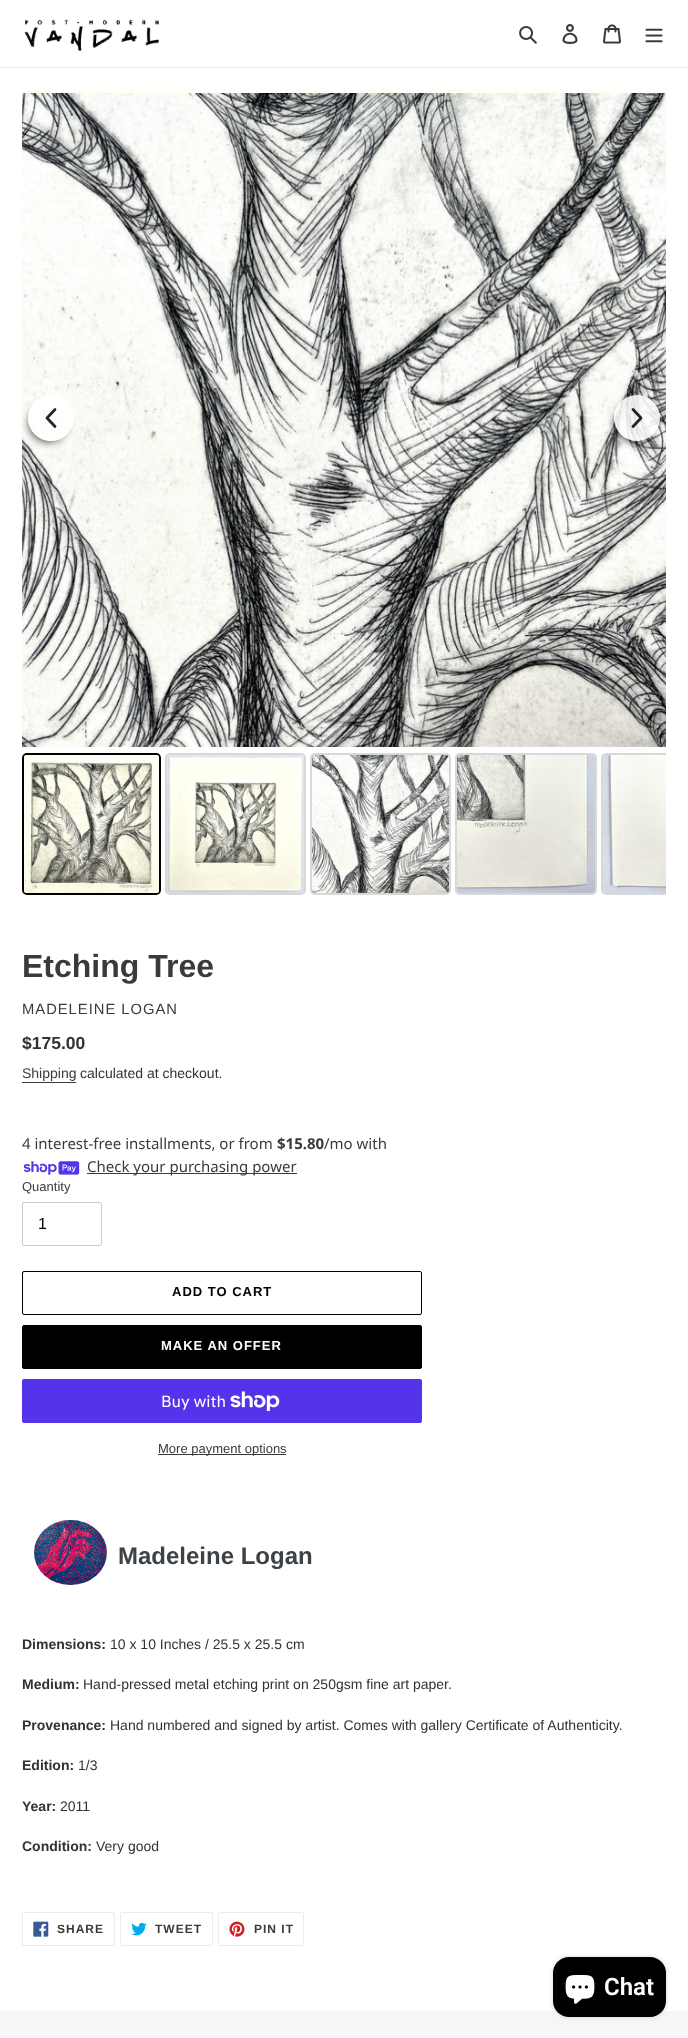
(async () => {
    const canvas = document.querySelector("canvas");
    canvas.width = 688;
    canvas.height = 2038;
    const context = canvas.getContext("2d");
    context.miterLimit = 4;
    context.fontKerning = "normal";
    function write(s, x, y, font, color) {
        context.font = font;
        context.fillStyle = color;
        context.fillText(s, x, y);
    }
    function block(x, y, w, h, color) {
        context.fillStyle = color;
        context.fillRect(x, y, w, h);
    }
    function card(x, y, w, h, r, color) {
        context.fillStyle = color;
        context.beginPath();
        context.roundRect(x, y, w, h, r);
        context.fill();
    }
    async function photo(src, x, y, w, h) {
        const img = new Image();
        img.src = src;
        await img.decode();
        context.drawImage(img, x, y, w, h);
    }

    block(0, 0, 688, 2038, "rgb(255, 255, 255)");
    block(0, 67, 688, 1, "rgb(235, 235, 235)");
    await photo("media/1.png", 24, 19, 135, 33);
    await photo("media/2.png", 519, 26, 18, 18);
    await photo("media/3.png", 562, 24, 16, 20);
    await photo("media/4.png", 603, 24, 18, 20);
    await photo("media/5.png", 645, 28, 18, 15);
    await photo("media/6.png", 22, 90, 644, 4);
    await photo("media/7.png", 22, 93, 644, 654);
    context.save();
    context.beginPath();
    context.moveTo(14, 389);
    context.lineTo(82, 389);
    context.lineTo(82, 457);
    context.lineTo(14, 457);
    context.closePath();
    context.moveTo(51, 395);
    context.bezierCurveTo(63.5, 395, 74, 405.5, 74, 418);
    context.bezierCurveTo(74, 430.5, 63.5, 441, 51, 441);
    context.bezierCurveTo(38.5, 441, 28, 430.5, 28, 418);
    context.bezierCurveTo(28, 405.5, 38.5, 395, 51, 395);
    context.closePath();
    context.clip("evenodd");
    context.fillStyle = "rgba(0, 0, 0, 0.85)";
    context.filter = "blur(5px)";
    context.beginPath();
    context.roundRect(30, 405, 36, 36, 18);
    context.fill();
    context.filter = "none";
    context.restore();
    context.fillStyle = "rgba(255, 255, 255, 0.85)";
    context.beginPath();
    context.arc(51, 418, 23, 0, Math.PI * 2);
    context.fill();
    context.beginPath();
    context.moveTo(55, 409.5);
    context.lineTo(47, 418);
    context.lineTo(55, 426.5);
    context.strokeStyle = "rgb(38, 38, 38)";
    context.lineWidth = 2.8;
    context.lineCap = "round";
    context.lineJoin = "round";
    context.stroke();
    context.save();
    context.beginPath();
    context.moveTo(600, 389);
    context.lineTo(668, 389);
    context.lineTo(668, 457);
    context.lineTo(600, 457);
    context.closePath();
    context.moveTo(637, 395);
    context.bezierCurveTo(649.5, 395, 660, 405.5, 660, 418);
    context.bezierCurveTo(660, 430.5, 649.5, 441, 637, 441);
    context.bezierCurveTo(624.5, 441, 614, 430.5, 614, 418);
    context.bezierCurveTo(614, 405.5, 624.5, 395, 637, 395);
    context.closePath();
    context.clip("evenodd");
    context.fillStyle = "rgba(0, 0, 0, 0.85)";
    context.filter = "blur(5px)";
    context.beginPath();
    context.roundRect(616, 405, 36, 36, 18);
    context.fill();
    context.filter = "none";
    context.restore();
    context.beginPath();
    context.arc(637, 418, 23, 0, Math.PI * 2);
    context.fill();
    context.beginPath();
    context.moveTo(633, 409.5);
    context.lineTo(641, 418);
    context.lineTo(633, 426.5);
    context.strokeStyle = "rgba(0, 0, 0, 0.85)";
    context.stroke();
    context.beginPath();
    context.roundRect(23, 754, 137, 140, 4);
    context.strokeStyle = "rgb(0, 0, 0)";
    context.lineWidth = 2;
    context.lineJoin = "miter";
    context.stroke();
    await photo("media/8.png", 24, 755, 135, 138);
    await photo("media/9.png", 24, 755, 135, 138);
    context.beginPath();
    context.roundRect(166, 754, 139, 140, 4);
    context.strokeStyle = "rgb(217, 216, 216)";
    context.stroke();
    await photo("media/10.png", 167, 755, 137, 138);
    await photo("media/11.png", 167, 891, 137, 2);
    context.beginPath();
    context.roundRect(311, 754, 139, 140, 4);
    context.stroke();
    await photo("media/12.png", 312, 755, 137, 138);
    context.beginPath();
    context.roundRect(456, 754, 140, 140, 4);
    context.stroke();
    await photo("media/13.png", 457, 755, 138, 138);
    context.save();
    context.beginPath();
    context.rect(22, 747, 644, 154);
    context.clip();
    context.beginPath();
    context.roundRect(602, 754, 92, 140, 4);
    context.stroke();
    context.restore();
    await photo("media/14.png", 603, 755, 63, 138);
    write("Etching Tree", 22, 977, "bold 32px Liberation Sans", "rgb(58, 58, 58)");
    context.letterSpacing = "1px";
    write("MADELEINE LOGAN", 22, 1014, "14.75px Liberation Sans", "rgb(58, 58, 58)");
    context.letterSpacing = "0px";
    write("$175.00", 22, 1049, "bold 17.5px Liberation Sans", "rgb(51, 50, 50)");
    write("Shipping", 22, 1078, "14px Liberation Sans", "rgb(58, 58, 58)");
    block(22, 1082, 54, 1, "rgb(58, 58, 58)");
    write("calculated at checkout.", 80, 1078, "14px Liberation Sans", "rgb(51, 50, 50)");
    write("4 interest-free installments, or from", 22, 1149, "15px Noto Sans", "rgb(58, 58, 58)");
    write("$15.80", 277, 1149, "bold 15px Noto Sans", "rgb(58, 58, 58)");
    write("/mo with", 324, 1149, "15px Noto Sans", "rgb(58, 58, 58)");
    await photo("media/15.png", 23, 1161, 57, 14);
    block(87, 1173, 210, 1, "rgb(58, 58, 58)");
    write("Check your purchasing power", 87, 1172, "15px Noto Sans", "rgb(58, 58, 58)");
    write("Quantity", 22, 1191, "13px Liberation Sans", "rgb(58, 58, 58)");
    context.beginPath();
    context.roundRect(22.5, 1202.5, 79, 43, 1.5);
    context.strokeStyle = "rgb(204, 204, 204)";
    context.lineWidth = 1;
    context.stroke();
    write("1", 38, 1229, "16px Liberation Sans", "rgb(0, 0, 0)");
    context.beginPath();
    context.roundRect(22.5, 1271.5, 399, 43, 1.5);
    context.strokeStyle = "rgb(0, 0, 0)";
    context.stroke();
    context.letterSpacing = "1px";
    write("ADD TO CART", 172, 1296, "bold 13px Liberation Sans", "rgb(0, 0, 0)");
    context.beginPath();
    context.roundRect(22.5, 1325.5, 399, 43, 1.5);
    context.fill();
    context.stroke();
    write("MAKE AN OFFER", 161, 1350, "bold 13px Liberation Sans", "rgb(255, 255, 255)");
    card(22, 1379, 400, 44, 2, "rgb(84, 51, 235)");
    context.letterSpacing = "0px";
    write("Buy with", 161, 1407, "16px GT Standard", "rgb(255, 255, 255)");
    await photo("media/16.png", 230, 1391, 50, 20);
    block(158, 1454, 128, 1, "rgb(58, 58, 58)");
    write("More payment options", 158, 1453, "13px Liberation Sans", "rgb(58, 58, 58)");
    await photo("media/17.png", 34, 1520, 73, 65);
    write("Madeleine Logan", 118, 1564, "bold 24px Liberation Sans", "rgb(61, 66, 70)");
    write("Dimensions:", 22, 1649, "bold 14px Liberation Sans", "rgb(51, 50, 50)");
    write("10 x 10 Inches / 25.5 x 25.5 cm", 110, 1649, "14px Liberation Sans", "rgb(51, 50, 50)");
    write("Medium:", 22, 1689, "bold 14px Liberation Sans", "rgb(51, 50, 50)");
    write("Hand-pressed metal etching print on 250gsm fine art paper.", 83, 1689, "14px Liberation Sans", "rgb(51, 50, 50)");
    write("Provenance:", 22, 1730, "bold 14px Liberation Sans", "rgb(51, 50, 50)");
    write("Hand numbered and signed by artist. Comes with gallery Certificate of Authenticity.", 110, 1730, "14px Liberation Sans", "rgb(51, 50, 50)");
    write("Edition:", 22, 1770, "bold 14px Liberation Sans", "rgb(51, 50, 50)");
    write("1/3", 78, 1770, "14px Liberation Sans", "rgb(51, 50, 50)");
    write("Year:", 22, 1811, "bold 14px Liberation Sans", "rgb(51, 50, 50)");
    write("2011", 60, 1811, "14px Liberation Sans", "rgb(51, 50, 50)");
    write("Condition:", 22, 1851, "bold 14px Liberation Sans", "rgb(51, 50, 50)");
    write("Very good", 96, 1851, "14px Liberation Sans", "rgb(51, 50, 50)");
    context.beginPath();
    context.roundRect(22.5, 1912.5, 92, 33, 1.5);
    context.strokeStyle = "rgb(235, 235, 235)";
    context.stroke();
    await photo("media/18.png", 33, 1921, 16, 16);
    context.letterSpacing = "1px";
    write("SHARE", 57, 1933, "bold 12px Liberation Sans", "rgb(58, 58, 58)");
    context.beginPath();
    context.roundRect(120.5, 1912.5, 92, 33, 1.5);
    context.stroke();
    await photo("media/19.png", 131, 1922, 16, 14);
    write("TWEET", 155, 1933, "bold 12px Liberation Sans", "rgb(58, 58, 58)");
    context.beginPath();
    context.roundRect(218.5, 1912.5, 85, 33, 1.5);
    context.stroke();
    await photo("media/20.png", 229, 1921, 16, 16);
    write("PIN IT", 254, 1933, "bold 12px Liberation Sans", "rgb(58, 58, 58)");
    block(0, 2011, 688, 27, "rgb(246, 246, 246)");
    context.fillStyle = "rgba(0, 0, 0, 0.15)";
    context.filter = "blur(2.5px)";
    context.beginPath();
    context.roundRect(553, 1957, 113, 60, 16);
    context.fill();
    context.filter = "none";
    card(553, 1957, 113, 60, 16, "rgb(0, 0, 0)");
    await photo("media/21.png", 565, 1975, 30, 29);
    context.letterSpacing = "0px";
    write("Chat", 604, 1995, "600 24px Roboto", "rgb(255, 255, 255)");
})();
